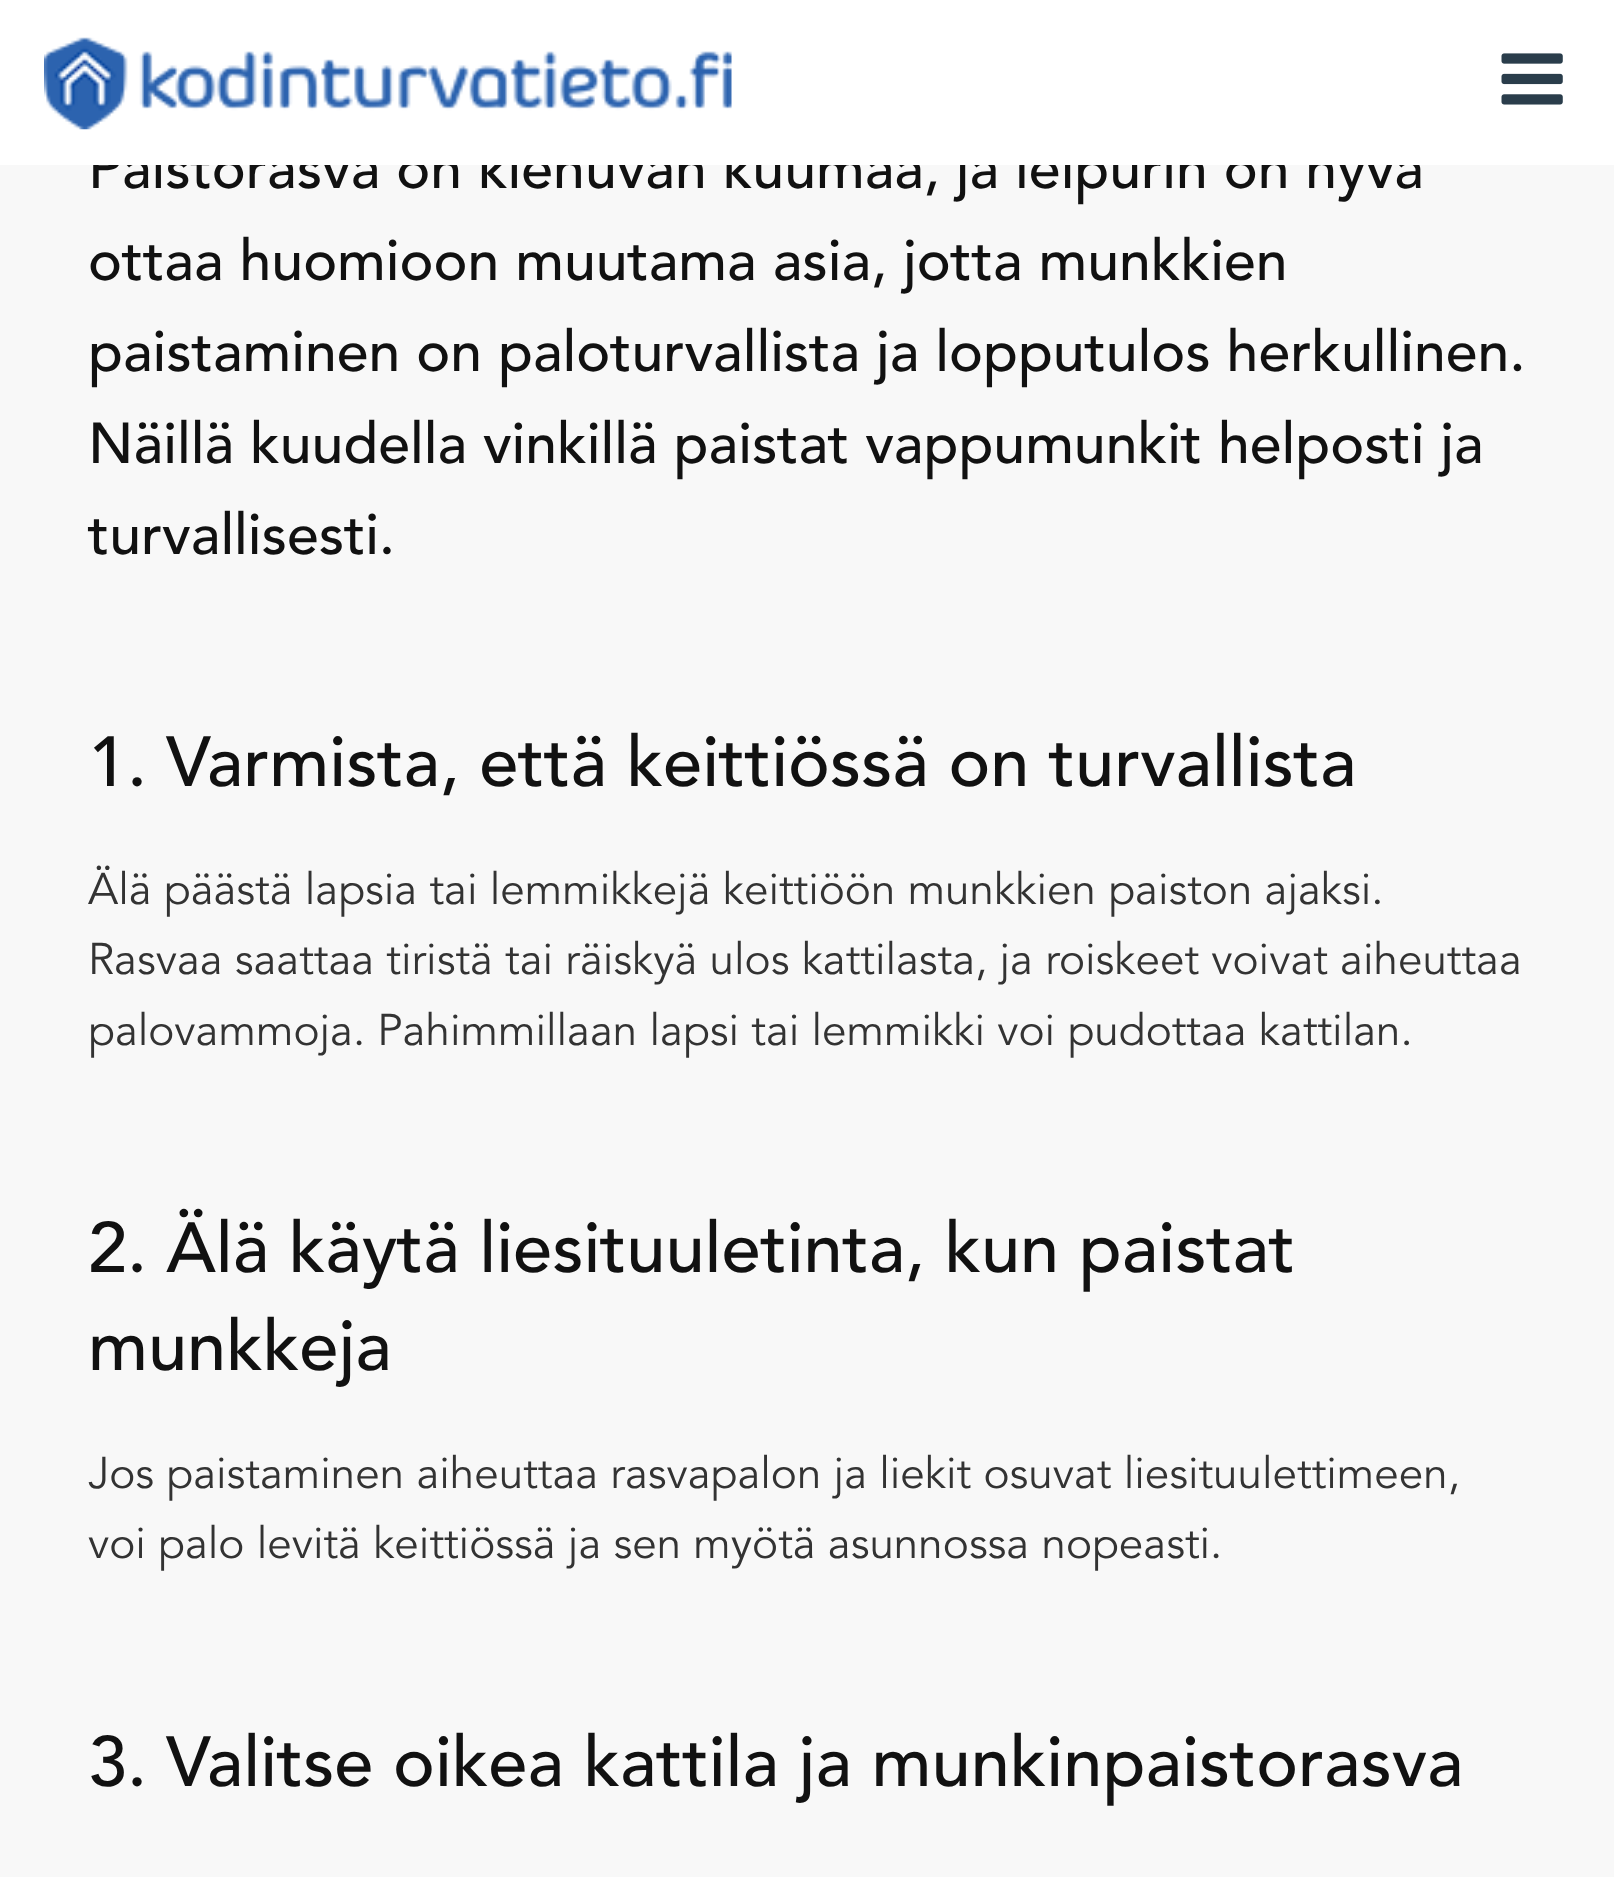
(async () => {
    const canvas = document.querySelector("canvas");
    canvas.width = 1614;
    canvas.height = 1877;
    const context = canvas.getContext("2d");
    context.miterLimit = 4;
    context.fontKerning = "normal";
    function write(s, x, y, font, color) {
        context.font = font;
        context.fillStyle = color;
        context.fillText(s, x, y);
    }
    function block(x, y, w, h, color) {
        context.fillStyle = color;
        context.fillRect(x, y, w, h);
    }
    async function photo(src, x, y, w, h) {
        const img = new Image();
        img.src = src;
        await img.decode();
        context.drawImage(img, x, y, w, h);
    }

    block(0, 0, 1614, 1877, "rgb(248, 248, 248)");
    write("Paistorasva on kiehuvan kuumaa, ja leipurin on hyvä", 88, 188, "500 57.2px 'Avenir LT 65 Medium'", "rgb(17, 17, 17)");
    block(0, 0, 1614, 165, "rgb(255, 255, 255)");
    await photo("media/1.png", 44, 37, 688, 93);
    await photo("media/2.png", 1501, 53, 62, 52);
    write("ottaa huomioon muutama asia, jotta munkkien", 88, 280, "500 57.2px 'Avenir LT 65 Medium'", "rgb(17, 17, 17)");
    write("paistaminen on paloturvallista ja lopputulos herkullinen.", 88, 371, "500 57.2px 'Avenir LT 65 Medium'", "rgb(17, 17, 17)");
    write("Näillä kuudella vinkillä paistat vappumunkit helposti ja", 88, 463, "500 57.2px 'Avenir LT 65 Medium'", "rgb(17, 17, 17)");
    write("turvallisesti.", 88, 554, "500 57.2px 'Avenir LT 65 Medium'", "rgb(17, 17, 17)");
    write("1. Varmista, että keittiössä on turvallista", 88, 786, "500 70.4px 'Avenir LT 65 Medium'", "rgb(17, 17, 17)");
    write("Älä päästä lapsia tai lemmikkejä keittiöön munkkien paiston ajaksi.", 88, 904, "44px 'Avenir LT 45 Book'", "rgb(51, 51, 51)");
    write("Rasvaa saattaa tiristä tai räiskyä ulos kattilasta, ja roiskeet voivat aiheuttaa", 88, 974, "44px 'Avenir LT 45 Book'", "rgb(51, 51, 51)");
    write("palovammoja. Pahimmillaan lapsi tai lemmikki voi pudottaa kattilan.", 88, 1045, "44px 'Avenir LT 45 Book'", "rgb(51, 51, 51)");
    write("2. Älä käytä liesituuletinta, kun paistat", 88, 1272, "500 70.4px 'Avenir LT 65 Medium'", "rgb(17, 17, 17)");
    write("munkkeja", 88, 1370, "500 70.4px 'Avenir LT 65 Medium'", "rgb(17, 17, 17)");
    write("Jos paistaminen aiheuttaa rasvapalon ja liekit osuvat liesituulettimeen,", 88, 1488, "44px 'Avenir LT 45 Book'", "rgb(51, 51, 51)");
    write("voi palo levitä keittiössä ja sen myötä asunnossa nopeasti.", 88, 1558, "44px 'Avenir LT 45 Book'", "rgb(51, 51, 51)");
    write("3. Valitse oikea kattila ja munkinpaistorasva", 88, 1786, "500 70.4px 'Avenir LT 65 Medium'", "rgb(17, 17, 17)");
})();
